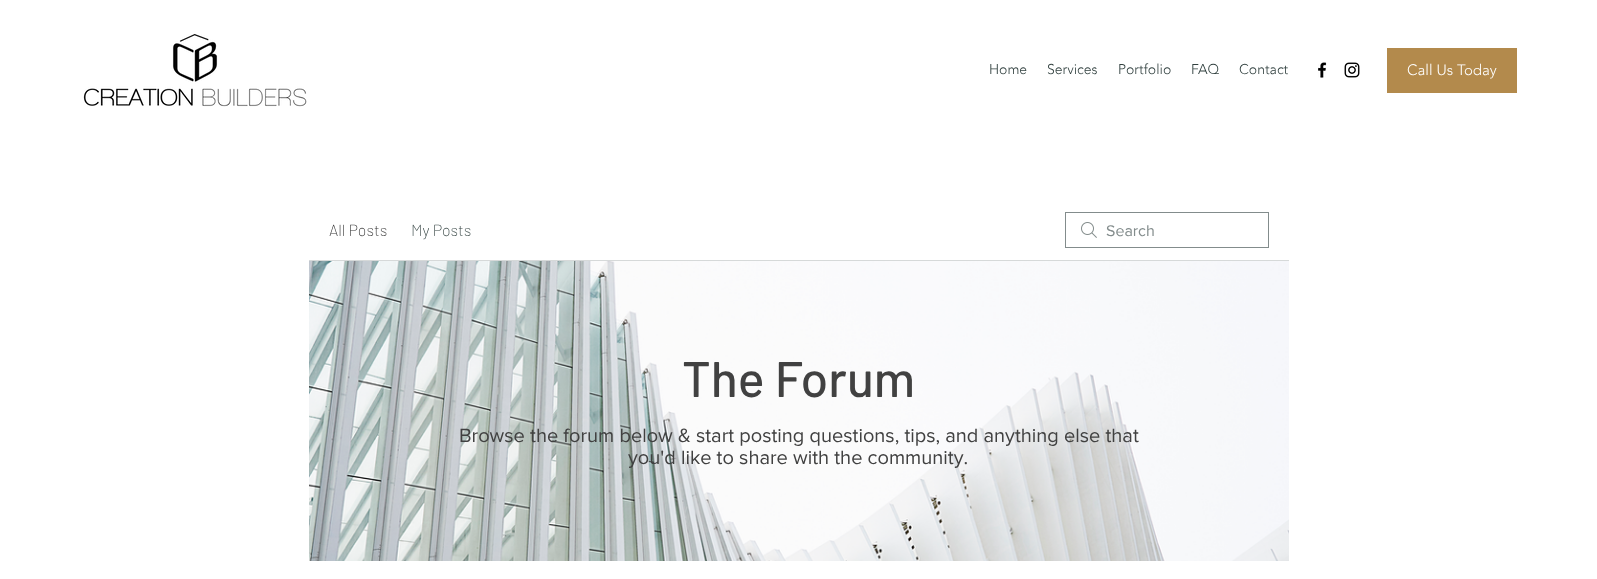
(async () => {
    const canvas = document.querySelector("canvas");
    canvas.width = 1597;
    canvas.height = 579;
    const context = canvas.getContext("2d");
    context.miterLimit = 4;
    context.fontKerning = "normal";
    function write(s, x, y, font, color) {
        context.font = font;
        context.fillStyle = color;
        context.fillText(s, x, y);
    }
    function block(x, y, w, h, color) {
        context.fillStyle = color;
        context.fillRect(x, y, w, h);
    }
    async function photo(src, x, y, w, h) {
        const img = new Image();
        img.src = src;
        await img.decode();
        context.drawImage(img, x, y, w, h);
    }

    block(0, 0, 1597, 579, "rgb(255, 255, 255)");
    await photo("media/1.png", 83, 34, 224, 73);
    write("Home", 989, 74, "300 14px 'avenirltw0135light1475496'", "rgb(49, 64, 63)");
    write("Services", 1047, 74, "300 14px 'avenirltw0135light1475496'", "rgb(49, 64, 63)");
    write("Portfolio", 1118, 74, "300 14px 'avenirltw0135light1475496'", "rgb(49, 64, 63)");
    write("FAQ", 1191, 74, "300 14px 'avenirltw0135light1475496'", "rgb(49, 64, 63)");
    write("Contact", 1239, 74, "300 14px 'avenirltw0135light1475496'", "rgb(49, 64, 63)");
    await photo("media/2.png", 1318, 62, 9, 16);
    await photo("media/3.png", 1344, 62, 16, 16);
    block(1387, 48, 130, 45, "rgb(179, 138, 76)");
    write("Call Us Today", 1407, 75, "300 15px 'avenirltw0135light1475496'", "rgb(255, 255, 255)");
    block(309, 260, 980, 1, "rgb(214, 217, 217)");
    write("All Posts", 329, 236, "200 16px Barlow", "rgb(52, 52, 52)");
    write("My Posts", 411, 236, "200 16px Barlow", "rgb(49, 64, 63)");
    await photo("media/4.png", 1081, 222, 16, 16);
    context.strokeStyle = "rgb(131, 140, 140)";
    context.strokeRect(1065.5, 212.5, 203, 35);
    write("Search", 1106, 236, "16px 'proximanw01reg'", "rgb(131, 140, 140)");
    await photo("media/5.png", 309, 261, 980, 300);
    write("The Forum", 682, 397, "500 50px Barlow", "rgb(65, 65, 65)");
    write("Browse the forum below & start posting questions, tips, and anything else that", 459, 442, "20px 'proximanw01reg'", "rgb(65, 65, 65)");
    write("you'd like to share with the community.", 628, 464, "20px 'proximanw01reg'", "rgb(65, 65, 65)");
})();
